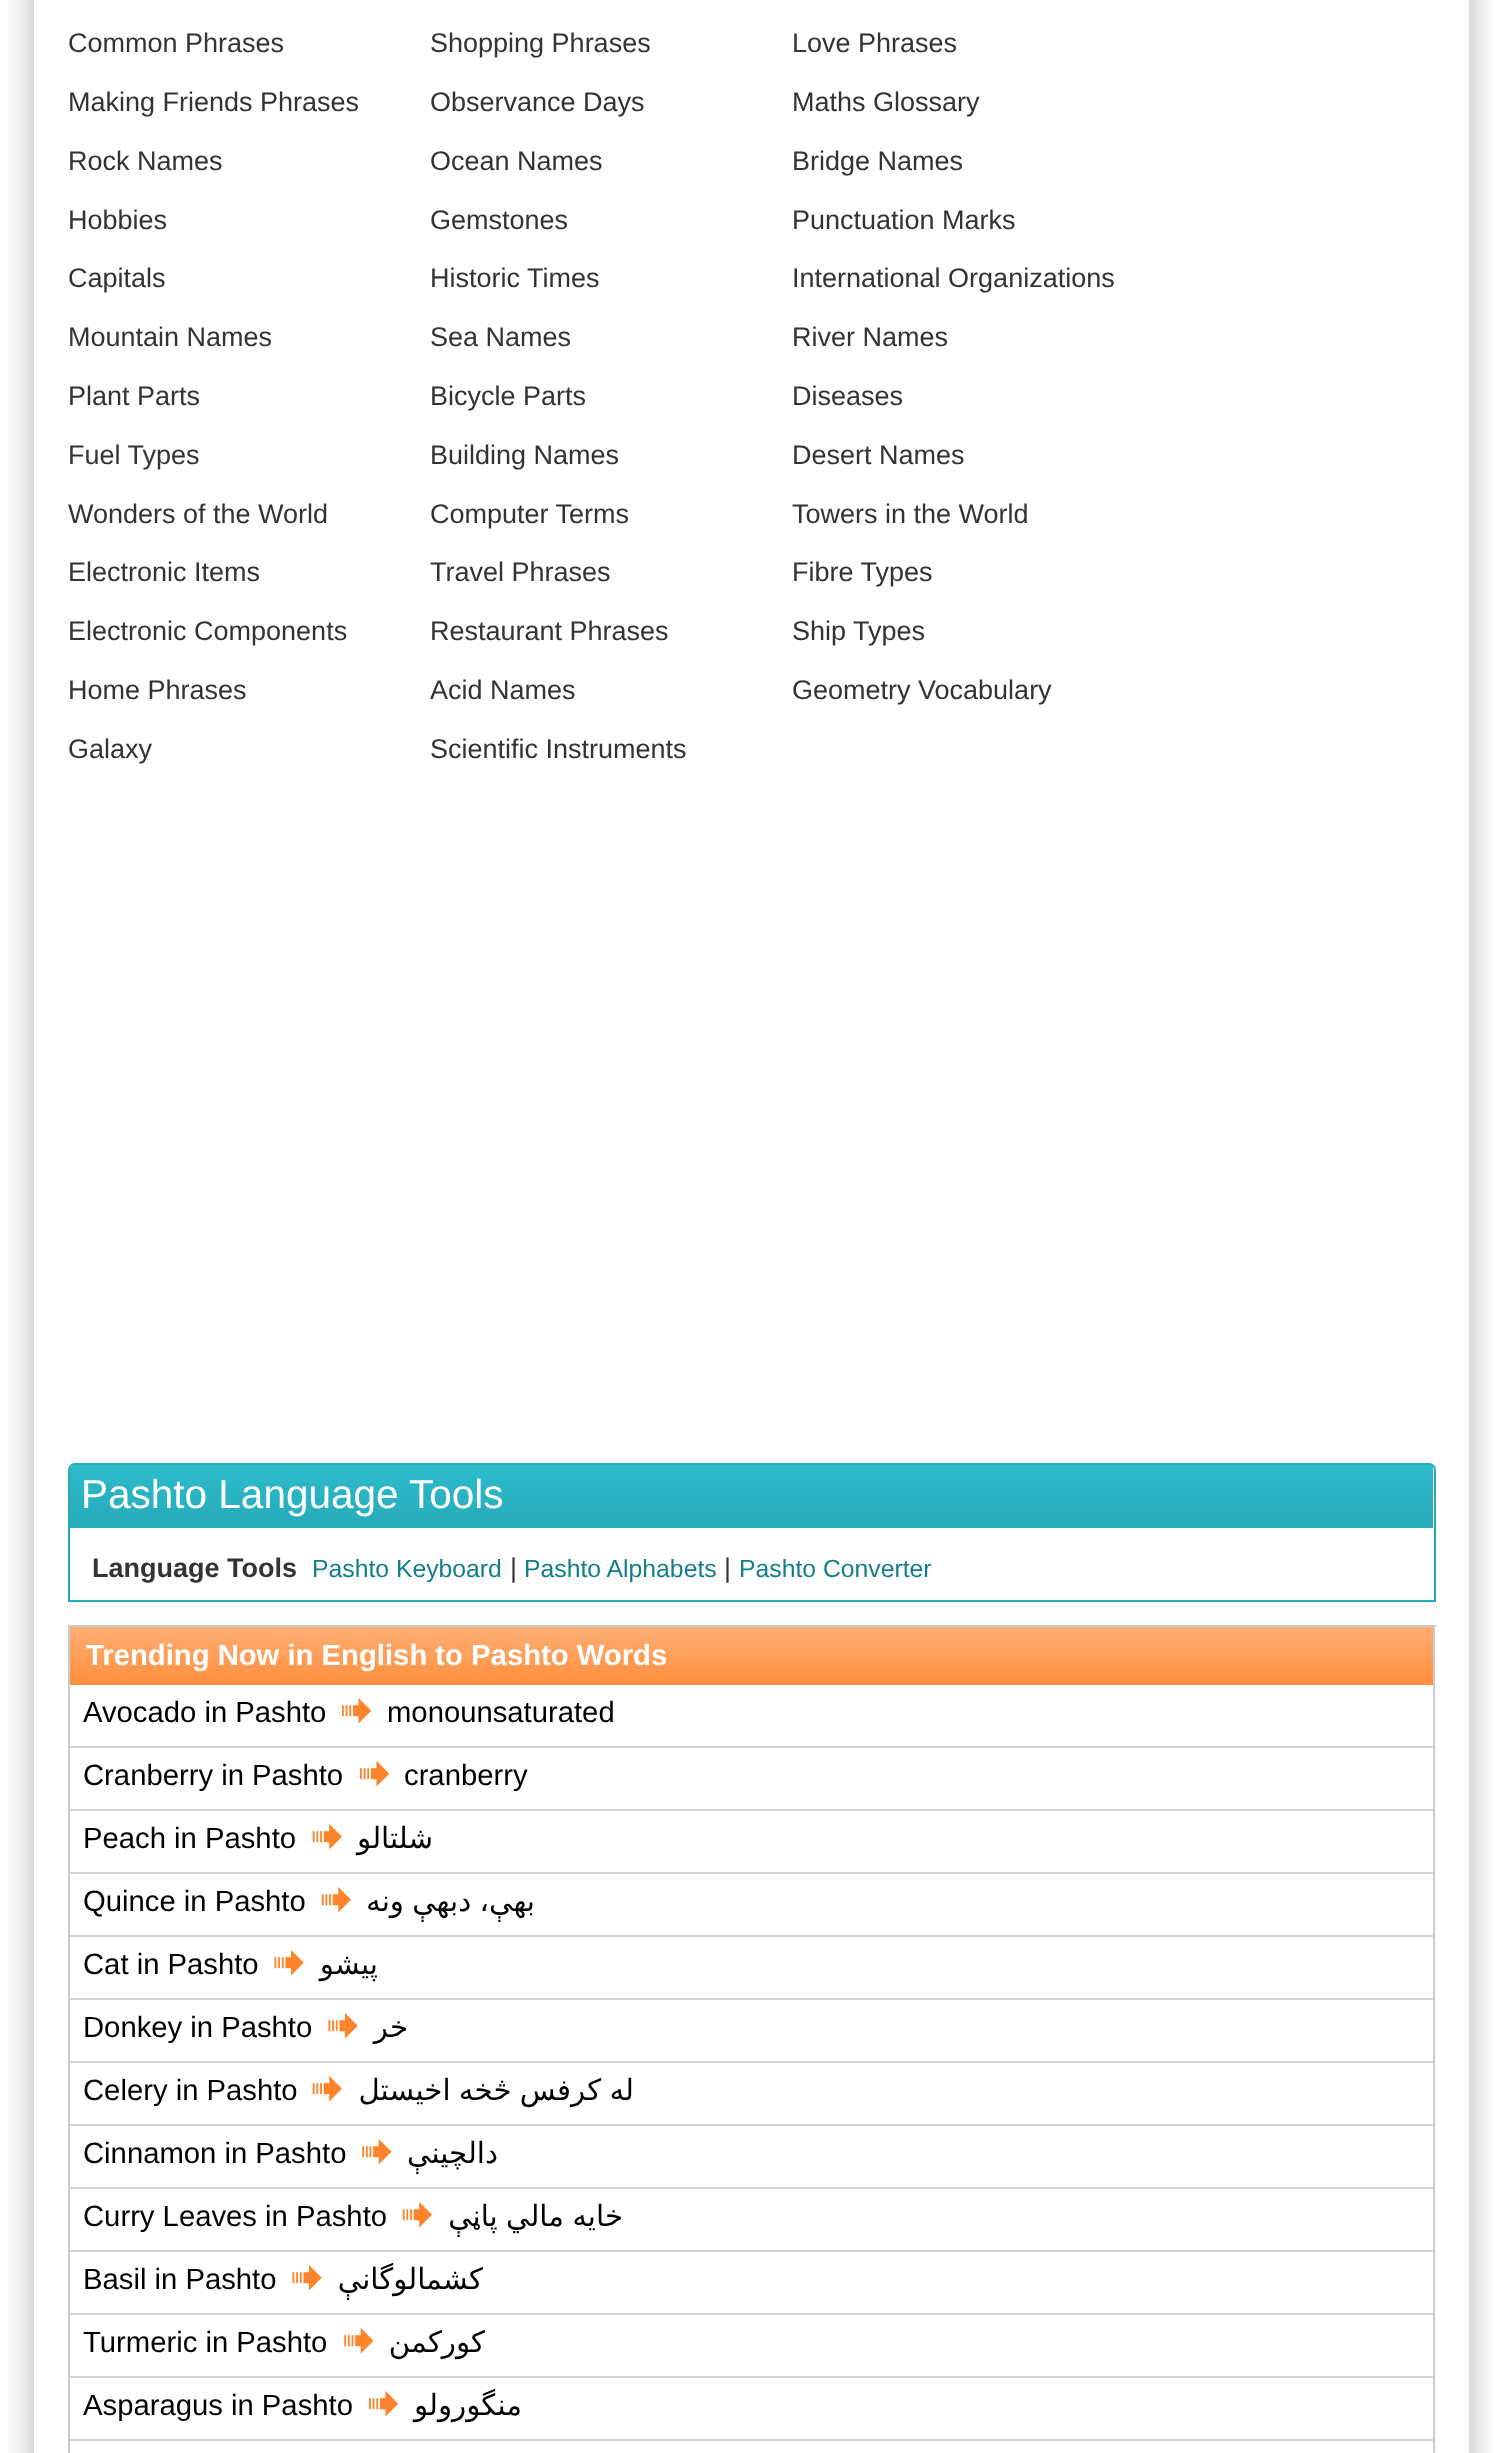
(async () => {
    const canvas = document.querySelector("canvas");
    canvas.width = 1501;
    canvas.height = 2453;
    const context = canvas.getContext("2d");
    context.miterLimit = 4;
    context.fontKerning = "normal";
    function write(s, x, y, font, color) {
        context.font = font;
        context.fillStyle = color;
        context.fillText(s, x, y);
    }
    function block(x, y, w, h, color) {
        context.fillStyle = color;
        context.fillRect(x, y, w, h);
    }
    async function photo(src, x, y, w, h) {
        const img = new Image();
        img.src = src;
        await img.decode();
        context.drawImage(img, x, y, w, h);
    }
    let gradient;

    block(0, 0, 1501, 2453, "rgb(255, 255, 255)");
    context.save();
    context.beginPath();
    context.rect(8, 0, 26, 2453);
    context.clip();
    context.fillStyle = "rgba(0, 0, 0, 0.3)";
    context.filter = "blur(17px)";
    context.beginPath();
    context.rect(34, -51, 1399, 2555);
    context.fill();
    context.filter = "none";
    context.restore();
    context.save();
    context.beginPath();
    context.rect(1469, 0, 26, 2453);
    context.clip();
    context.fillStyle = "rgba(0, 0, 0, 0.3)";
    context.filter = "blur(17px)";
    context.beginPath();
    context.rect(70, -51, 1399, 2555);
    context.fill();
    context.filter = "none";
    context.restore();
    write("Common Phrases", 68, 52, "27px Liberation Sans", "rgb(51, 51, 51)");
    write("Shopping Phrases", 430, 52, "27px Liberation Sans", "rgb(51, 51, 51)");
    write("Love Phrases", 792, 52, "27px Liberation Sans", "rgb(51, 51, 51)");
    write("Making Friends Phrases", 68, 111, "27px Liberation Sans", "rgb(51, 51, 51)");
    write("Observance Days", 430, 111, "27px Liberation Sans", "rgb(51, 51, 51)");
    write("Maths Glossary", 792, 111, "27px Liberation Sans", "rgb(51, 51, 51)");
    write("Rock Names", 68, 170, "27px Liberation Sans", "rgb(51, 51, 51)");
    write("Ocean Names", 430, 170, "27px Liberation Sans", "rgb(51, 51, 51)");
    write("Bridge Names", 792, 170, "27px Liberation Sans", "rgb(51, 51, 51)");
    write("Hobbies", 68, 229, "27px Liberation Sans", "rgb(51, 51, 51)");
    write("Gemstones", 430, 229, "27px Liberation Sans", "rgb(51, 51, 51)");
    write("Punctuation Marks", 792, 229, "27px Liberation Sans", "rgb(51, 51, 51)");
    write("Capitals", 68, 287, "27px Liberation Sans", "rgb(51, 51, 51)");
    write("Historic Times", 430, 287, "27px Liberation Sans", "rgb(51, 51, 51)");
    write("International Organizations", 792, 287, "27px Liberation Sans", "rgb(51, 51, 51)");
    write("Mountain Names", 68, 346, "27px Liberation Sans", "rgb(51, 51, 51)");
    write("Sea Names", 430, 346, "27px Liberation Sans", "rgb(51, 51, 51)");
    write("River Names", 792, 346, "27px Liberation Sans", "rgb(51, 51, 51)");
    write("Plant Parts", 68, 405, "27px Liberation Sans", "rgb(51, 51, 51)");
    write("Bicycle Parts", 430, 405, "27px Liberation Sans", "rgb(51, 51, 51)");
    write("Diseases", 792, 405, "27px Liberation Sans", "rgb(51, 51, 51)");
    write("Fuel Types", 68, 464, "27px Liberation Sans", "rgb(51, 51, 51)");
    write("Building Names", 430, 464, "27px Liberation Sans", "rgb(51, 51, 51)");
    write("Desert Names", 792, 464, "27px Liberation Sans", "rgb(51, 51, 51)");
    write("Wonders of the World", 68, 523, "27px Liberation Sans", "rgb(51, 51, 51)");
    write("Computer Terms", 430, 523, "27px Liberation Sans", "rgb(51, 51, 51)");
    write("Towers in the World", 792, 523, "27px Liberation Sans", "rgb(51, 51, 51)");
    write("Electronic Items", 68, 581, "27px Liberation Sans", "rgb(51, 51, 51)");
    write("Travel Phrases", 430, 581, "27px Liberation Sans", "rgb(51, 51, 51)");
    write("Fibre Types", 792, 581, "27px Liberation Sans", "rgb(51, 51, 51)");
    write("Electronic Components", 68, 640, "27px Liberation Sans", "rgb(51, 51, 51)");
    write("Restaurant Phrases", 430, 640, "27px Liberation Sans", "rgb(51, 51, 51)");
    write("Ship Types", 792, 640, "27px Liberation Sans", "rgb(51, 51, 51)");
    write("Home Phrases", 68, 699, "27px Liberation Sans", "rgb(51, 51, 51)");
    write("Acid Names", 430, 699, "27px Liberation Sans", "rgb(51, 51, 51)");
    write("Geometry Vocabulary", 792, 699, "27px Liberation Sans", "rgb(51, 51, 51)");
    write("Galaxy", 68, 758, "27px Liberation Sans", "rgb(51, 51, 51)");
    write("Scientific Instruments", 430, 758, "27px Liberation Sans", "rgb(51, 51, 51)");
    context.beginPath();
    context.roundRect(69, 1464, 1366, 137, [6, 6, 0, 0]);
    context.strokeStyle = "rgb(39, 171, 186)";
    context.lineWidth = 2;
    context.stroke();
    gradient = context.createLinearGradient(752, 1465, 752, 1528);
    gradient.addColorStop(0, "rgb(44, 187, 203)");
    gradient.addColorStop(1, "rgb(39, 171, 186)");
    context.fillStyle = gradient;
    context.fillRect(70, 1465, 1363, 63);
    write("Pashto Language Tools", 81, 1508, "40.5px Liberation Sans", "rgb(255, 255, 255)");
    write("Language Tools", 92, 1577, "bold 27px Liberation Sans", "rgb(51, 51, 51)");
    write("Pashto Keyboard", 312, 1577, "24.75px Liberation Sans", "rgb(17, 126, 137)");
    write("|", 510, 1577, "27px Liberation Sans", "rgb(51, 51, 51)");
    write("Pashto Alphabets", 524, 1577, "24.75px Liberation Sans", "rgb(17, 126, 137)");
    write("|", 724, 1577, "27px Liberation Sans", "rgb(51, 51, 51)");
    write("Pashto Converter", 739, 1577, "24.75px Liberation Sans", "rgb(17, 126, 137)");
    block(68, 1625, 1368, 2, "rgb(204, 204, 204)");
    block(1433, 1625, 2, 828, "rgb(204, 204, 204)");
    block(68, 1625, 2, 828, "rgb(204, 204, 204)");
    gradient = context.createLinearGradient(70, 1627, 70, 1685);
    gradient.addColorStop(0, "rgb(255, 175, 118)");
    gradient.addColorStop(1, "rgb(255, 142, 60)");
    context.fillStyle = gradient;
    context.fillRect(70, 1627, 1363, 58);
    write("Trending Now in English to Pashto Words", 86, 1665, "bold 29.25px Liberation Sans", "rgb(255, 255, 255)");
    block(70, 1746, 1363, 2, "rgb(212, 212, 208)");
    write("Avocado in Pashto", 83, 1722, "29.25px Liberation Sans", "rgb(0, 0, 0)");
    await photo("media/1.png", 342, 1698, 30, 26);
    write("monounsaturated", 387, 1722, "29.25px Liberation Sans", "rgb(0, 0, 0)");
    block(70, 1809, 1363, 2, "rgb(212, 212, 208)");
    write("Cranberry in Pashto", 83, 1785, "29.25px Liberation Sans", "rgb(0, 0, 0)");
    await photo("media/1.png", 360, 1761, 30, 26);
    write("cranberry", 404, 1785, "29.25px Liberation Sans", "rgb(0, 0, 0)");
    block(70, 1872, 1363, 2, "rgb(212, 212, 208)");
    write("Peach in Pashto", 83, 1848, "29.25px Liberation Sans", "rgb(0, 0, 0)");
    await photo("media/2.png", 312, 1824, 30, 26);
    context.direction = "rtl";
    write("شلتالو", 433, 1848, "29.25px DejaVu Sans", "rgb(0, 0, 0)");
    block(70, 1935, 1363, 2, "rgb(212, 212, 208)");
    context.direction = "ltr";
    write("Quince in Pashto", 83, 1911, "29.25px Liberation Sans", "rgb(0, 0, 0)");
    await photo("media/2.png", 321, 1887, 30, 26);
    context.wordSpacing = "-1px";
    context.direction = "rtl";
    write("بهې، دبهې ونه", 535, 1911, "29.25px DejaVu Sans", "rgb(0, 0, 0)");
    block(70, 1998, 1363, 2, "rgb(212, 212, 208)");
    context.wordSpacing = "0px";
    context.direction = "ltr";
    write("Cat in Pashto", 83, 1974, "29.25px Liberation Sans", "rgb(0, 0, 0)");
    await photo("media/3.png", 274, 1950, 30, 26);
    context.direction = "rtl";
    write("پیشو", 378, 1974, "29.25px DejaVu Sans", "rgb(0, 0, 0)");
    block(70, 2061, 1363, 2, "rgb(212, 212, 208)");
    context.direction = "ltr";
    write("Donkey in Pashto", 83, 2037, "29.25px Liberation Sans", "rgb(0, 0, 0)");
    await photo("media/3.png", 328, 2013, 30, 26);
    context.direction = "rtl";
    write("خر", 408, 2037, "29.25px DejaVu Sans", "rgb(0, 0, 0)");
    block(70, 2124, 1363, 2, "rgb(212, 212, 208)");
    context.direction = "ltr";
    write("Celery in Pashto", 83, 2100, "29.25px Liberation Sans", "rgb(0, 0, 0)");
    await photo("media/2.png", 312, 2076, 30, 26);
    context.wordSpacing = "-1px";
    context.direction = "rtl";
    write("له کرفس څخه اخيستل", 634, 2100, "29.25px DejaVu Sans", "rgb(0, 0, 0)");
    block(70, 2187, 1363, 2, "rgb(212, 212, 208)");
    context.wordSpacing = "0px";
    context.direction = "ltr";
    write("Cinnamon in Pashto", 83, 2163, "29.25px Liberation Sans", "rgb(0, 0, 0)");
    await photo("media/4.png", 362, 2139, 30, 26);
    context.direction = "rtl";
    write("دالچينې", 498, 2163, "29.25px DejaVu Sans", "rgb(0, 0, 0)");
    block(70, 2250, 1363, 2, "rgb(212, 212, 208)");
    context.direction = "ltr";
    write("Curry Leaves in Pashto", 83, 2226, "29.25px Liberation Sans", "rgb(0, 0, 0)");
    await photo("media/2.png", 402, 2202, 30, 26);
    context.wordSpacing = "-1px";
    context.direction = "rtl";
    write("خايه مالي پاڼې", 623, 2226, "29.25px DejaVu Sans", "rgb(0, 0, 0)");
    block(70, 2313, 1363, 2, "rgb(212, 212, 208)");
    context.wordSpacing = "0px";
    context.direction = "ltr";
    write("Basil in Pashto", 83, 2289, "29.25px Liberation Sans", "rgb(0, 0, 0)");
    await photo("media/3.png", 292, 2265, 30, 26);
    context.direction = "rtl";
    write("كشمالوگانې", 483, 2289, "29.25px DejaVu Sans", "rgb(0, 0, 0)");
    block(70, 2376, 1363, 2, "rgb(212, 212, 208)");
    context.direction = "ltr";
    write("Turmeric in Pashto", 83, 2352, "29.25px Liberation Sans", "rgb(0, 0, 0)");
    await photo("media/4.png", 344, 2328, 30, 26);
    context.direction = "rtl";
    write("کورکمن", 485, 2352, "29.25px DejaVu Sans", "rgb(0, 0, 0)");
    block(70, 2439, 1363, 2, "rgb(212, 212, 208)");
    context.direction = "ltr";
    write("Asparagus in Pashto", 83, 2415, "29.25px Liberation Sans", "rgb(0, 0, 0)");
    await photo("media/1.png", 369, 2391, 30, 26);
    context.direction = "rtl";
    write("منگورولو", 522, 2415, "29.25px DejaVu Sans", "rgb(0, 0, 0)");
})();
